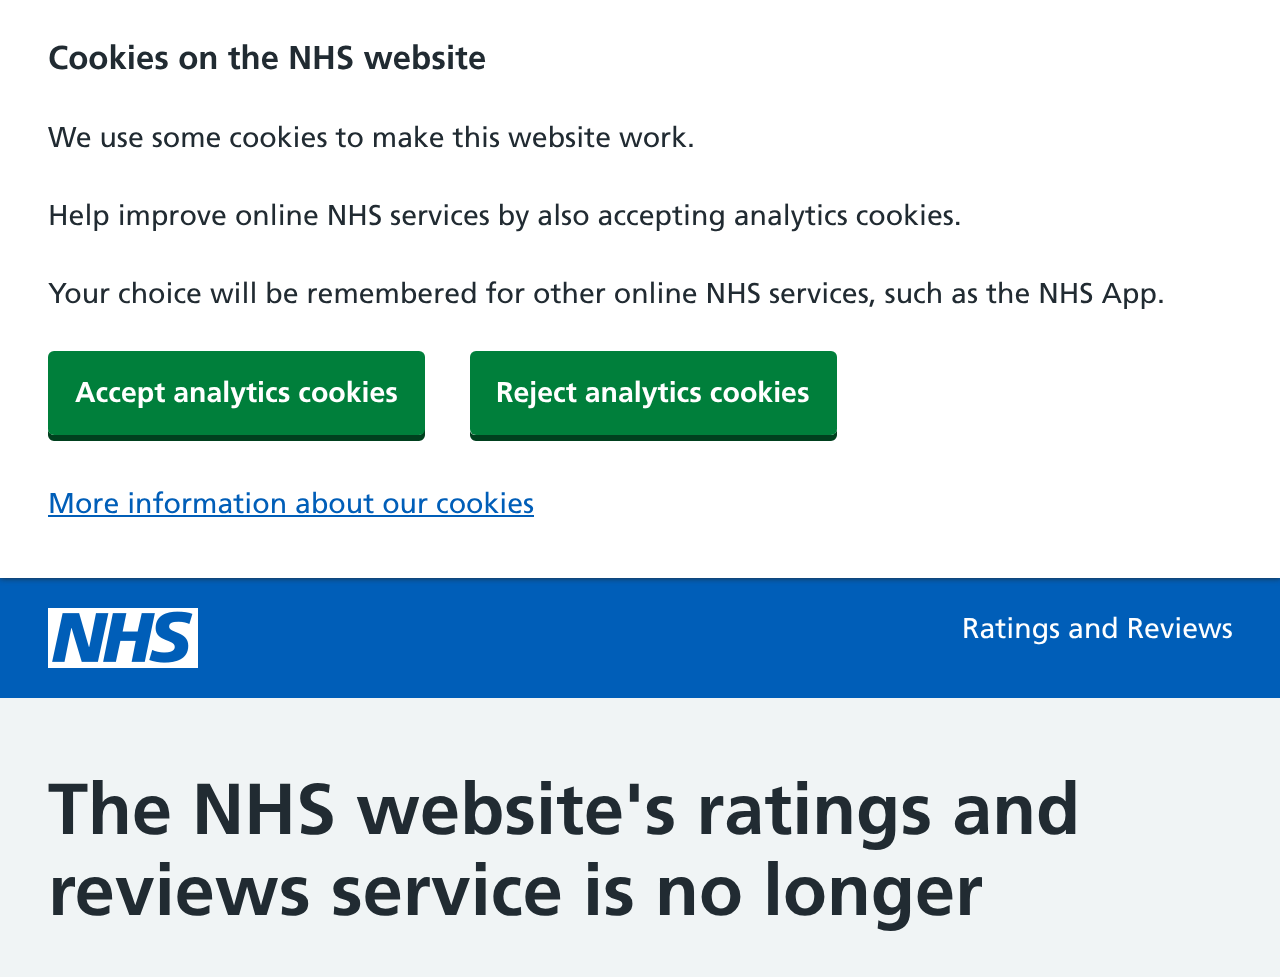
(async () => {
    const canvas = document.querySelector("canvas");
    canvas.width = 1280;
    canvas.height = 977;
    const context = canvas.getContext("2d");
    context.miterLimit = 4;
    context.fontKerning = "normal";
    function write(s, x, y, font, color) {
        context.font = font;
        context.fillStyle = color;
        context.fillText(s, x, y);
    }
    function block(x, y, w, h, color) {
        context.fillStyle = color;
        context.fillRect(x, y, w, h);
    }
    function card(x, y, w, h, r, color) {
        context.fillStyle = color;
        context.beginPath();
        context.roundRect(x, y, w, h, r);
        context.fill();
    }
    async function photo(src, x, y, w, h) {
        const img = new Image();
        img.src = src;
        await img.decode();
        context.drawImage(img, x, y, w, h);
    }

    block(0, 0, 1280, 977, "rgb(240, 244, 245)");
    block(0, 578, 1280, 120, "rgb(0, 94, 184)");
    context.fillStyle = "rgb(33, 43, 50)";
    context.filter = "blur(3px)";
    context.beginPath();
    context.rect(0, 0, 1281, 578);
    context.fill();
    context.filter = "none";
    block(0, 0, 1280, 578, "rgb(255, 255, 255)");
    write("Cookies on the NHS website", 48, 69, "bold 33px Frutiger", "rgb(33, 43, 50)");
    write("We use some cookies to make this website work.", 48, 147, "28.5px Frutiger", "rgb(33, 43, 50)");
    write("Help improve online NHS services by also accepting analytics cookies.", 48, 225, "28.5px Frutiger", "rgb(33, 43, 50)");
    write("Your choice will be remembered for other online NHS services, such as the NHS App.", 48, 303, "28.5px Frutiger", "rgb(33, 43, 50)");
    context.fillStyle = "rgb(0, 64, 30)";
    context.beginPath();
    context.moveTo(48, 429);
    context.lineTo(48, 435);
    context.bezierCurveTo(48, 438, 51, 441, 54, 441);
    context.lineTo(419, 441);
    context.bezierCurveTo(422, 441, 425, 438, 425, 435);
    context.lineTo(425, 363);
    context.lineTo(424, 361);
    context.lineTo(424, 429);
    context.bezierCurveTo(424, 432, 422, 435, 418, 435);
    context.lineTo(54, 435);
    context.bezierCurveTo(51, 435, 48, 432, 48, 429);
    context.closePath();
    context.fill();
    card(48, 351, 377, 84, 6, "rgb(0, 127, 59)");
    write("Accept analytics cookies", 75, 402, "bold 28.5px Frutiger", "rgb(255, 255, 255)");
    context.fillStyle = "rgb(0, 64, 30)";
    context.beginPath();
    context.moveTo(470, 431);
    context.lineTo(470, 435);
    context.bezierCurveTo(470, 438, 473, 441, 476, 441);
    context.lineTo(831, 441);
    context.bezierCurveTo(834, 441, 837, 438, 837, 435);
    context.lineTo(837, 429);
    context.bezierCurveTo(837, 432, 834, 435, 831, 435);
    context.lineTo(476, 435);
    context.bezierCurveTo(473, 435, 471, 434, 470, 431);
    context.closePath();
    context.fill();
    card(470, 351, 367, 84, 6, "rgb(0, 127, 59)");
    write("Reject analytics cookies", 496, 402, "bold 28.5px Frutiger", "rgb(255, 255, 255)");
    write("More information about our cookies", 48, 513, "28.5px Frutiger", "rgb(0, 94, 184)");
    block(48, 515, 486, 2, "rgb(0, 94, 184)");
    await photo("media/1.png", 48, 608, 150, 60);
    write("Ratings and Reviews", 962, 638, "28.5px Frutiger", "rgb(255, 255, 255)");
    write("The NHS website's ratings and", 48, 834, "bold 72px Frutiger", "rgb(33, 43, 50)");
    write("reviews service is no longer", 48, 915, "bold 72px Frutiger", "rgb(33, 43, 50)");
})();
